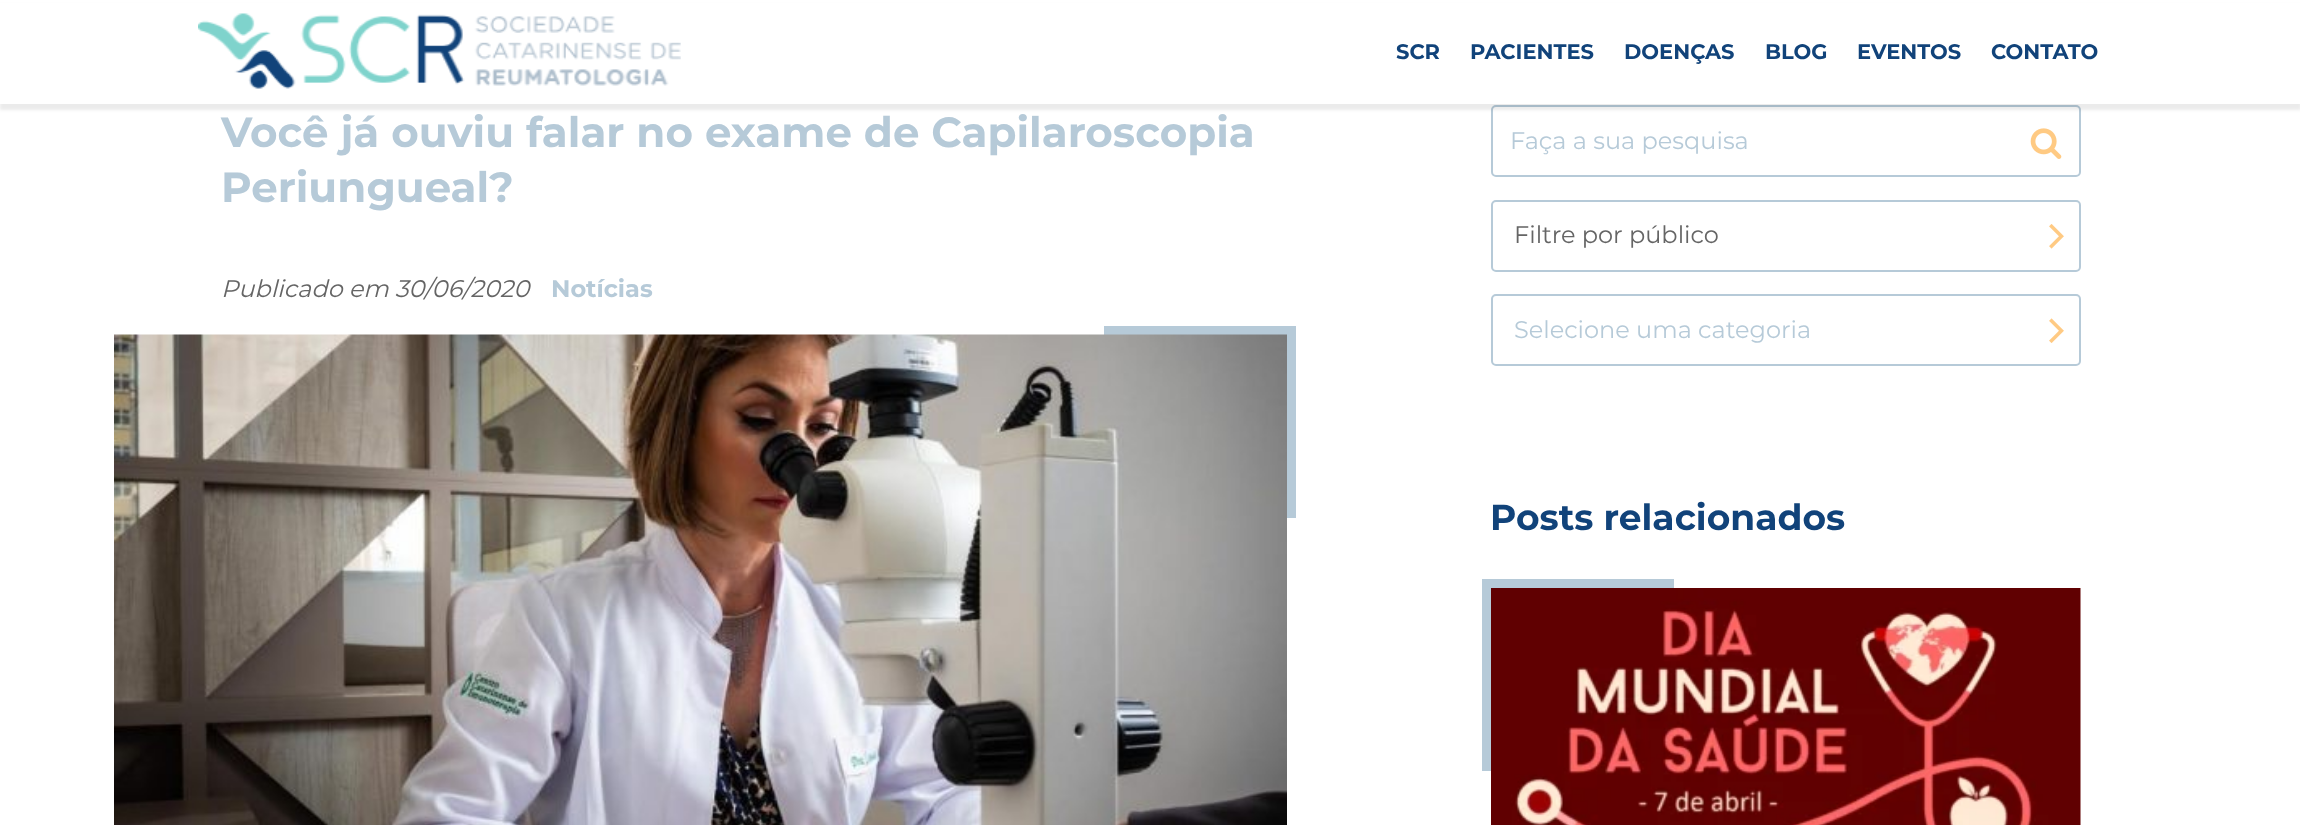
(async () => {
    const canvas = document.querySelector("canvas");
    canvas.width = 2300;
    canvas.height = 825;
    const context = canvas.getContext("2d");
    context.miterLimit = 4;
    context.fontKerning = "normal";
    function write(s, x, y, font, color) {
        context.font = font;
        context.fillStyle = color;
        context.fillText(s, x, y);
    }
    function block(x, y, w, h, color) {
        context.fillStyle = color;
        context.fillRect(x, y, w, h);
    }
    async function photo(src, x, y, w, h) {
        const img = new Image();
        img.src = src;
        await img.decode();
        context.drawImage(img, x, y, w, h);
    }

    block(0, 0, 2300, 825, "rgb(255, 255, 255)");
    context.beginPath();
    context.roundRect(1492, 106, 588, 70, 4);
    context.strokeStyle = "rgb(182, 202, 216)";
    context.lineWidth = 2;
    context.stroke();
    context.fillStyle = "rgba(0, 0, 0, 0.08)";
    context.filter = "blur(1.5px)";
    context.beginPath();
    context.rect(0, 5, 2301, 105);
    context.fill();
    context.filter = "none";
    block(0, 3, 2300, 101, "rgb(255, 255, 255)");
    await photo("media/1.png", 198, 13, 483, 76);
    write("SCR", 1396, 59, "bold 21px Montserrat", "rgb(17, 67, 122)");
    write("PACIENTES", 1470, 59, "bold 21px Montserrat", "rgb(17, 67, 122)");
    write("DOENÇAS", 1624, 59, "bold 21px Montserrat", "rgb(17, 67, 122)");
    write("BLOG", 1765, 59, "bold 21px Montserrat", "rgb(17, 67, 122)");
    write("EVENTOS", 1857, 59, "bold 21px Montserrat", "rgb(17, 67, 122)");
    write("CONTATO", 1991, 59, "bold 21px Montserrat", "rgb(17, 67, 122)");
    write("Você já ouviu falar no exame de Capilaroscopia", 221, 147, "bold 42px Montserrat", "rgb(182, 202, 216)");
    write("Periungueal?", 221, 202, "bold 42px Montserrat", "rgb(182, 202, 216)");
    write("Publicado em 30/06/2020", 221, 297, "italic 24px Montserrat", "rgb(101, 101, 101)");
    write("Notícias", 551, 297, "bold 24px Montserrat", "rgb(182, 202, 216)");
    block(1104, 326, 192, 192, "rgb(182, 202, 216)");
    await photo("media/2.png", 114, 334, 1173, 491);
    write("Faça a sua pesquisa", 1510, 149, "24px Montserrat", "rgb(182, 202, 216)");
    await photo("media/3.png", 2030, 128, 32, 31);
    context.beginPath();
    context.roundRect(1492, 201, 588, 70, 4);
    context.stroke();
    write("Filtre por público", 1514, 243, "24px Montserrat", "rgb(101, 101, 101)");
    await photo("media/4.png", 2049, 224, 15, 25);
    context.beginPath();
    context.roundRect(1492, 295, 588, 70, 4);
    context.stroke();
    write("Selecione uma categoria", 1514, 338, "24px Montserrat", "rgb(182, 202, 216)");
    await photo("media/5.png", 2049, 318, 15, 25);
    write("Posts relacionados", 1490, 530, "bold 36px Montserrat", "rgb(17, 67, 122)");
    block(1482, 579, 192, 192, "rgb(182, 202, 216)");
    await photo("media/6.png", 1491, 588, 590, 237);
})();
